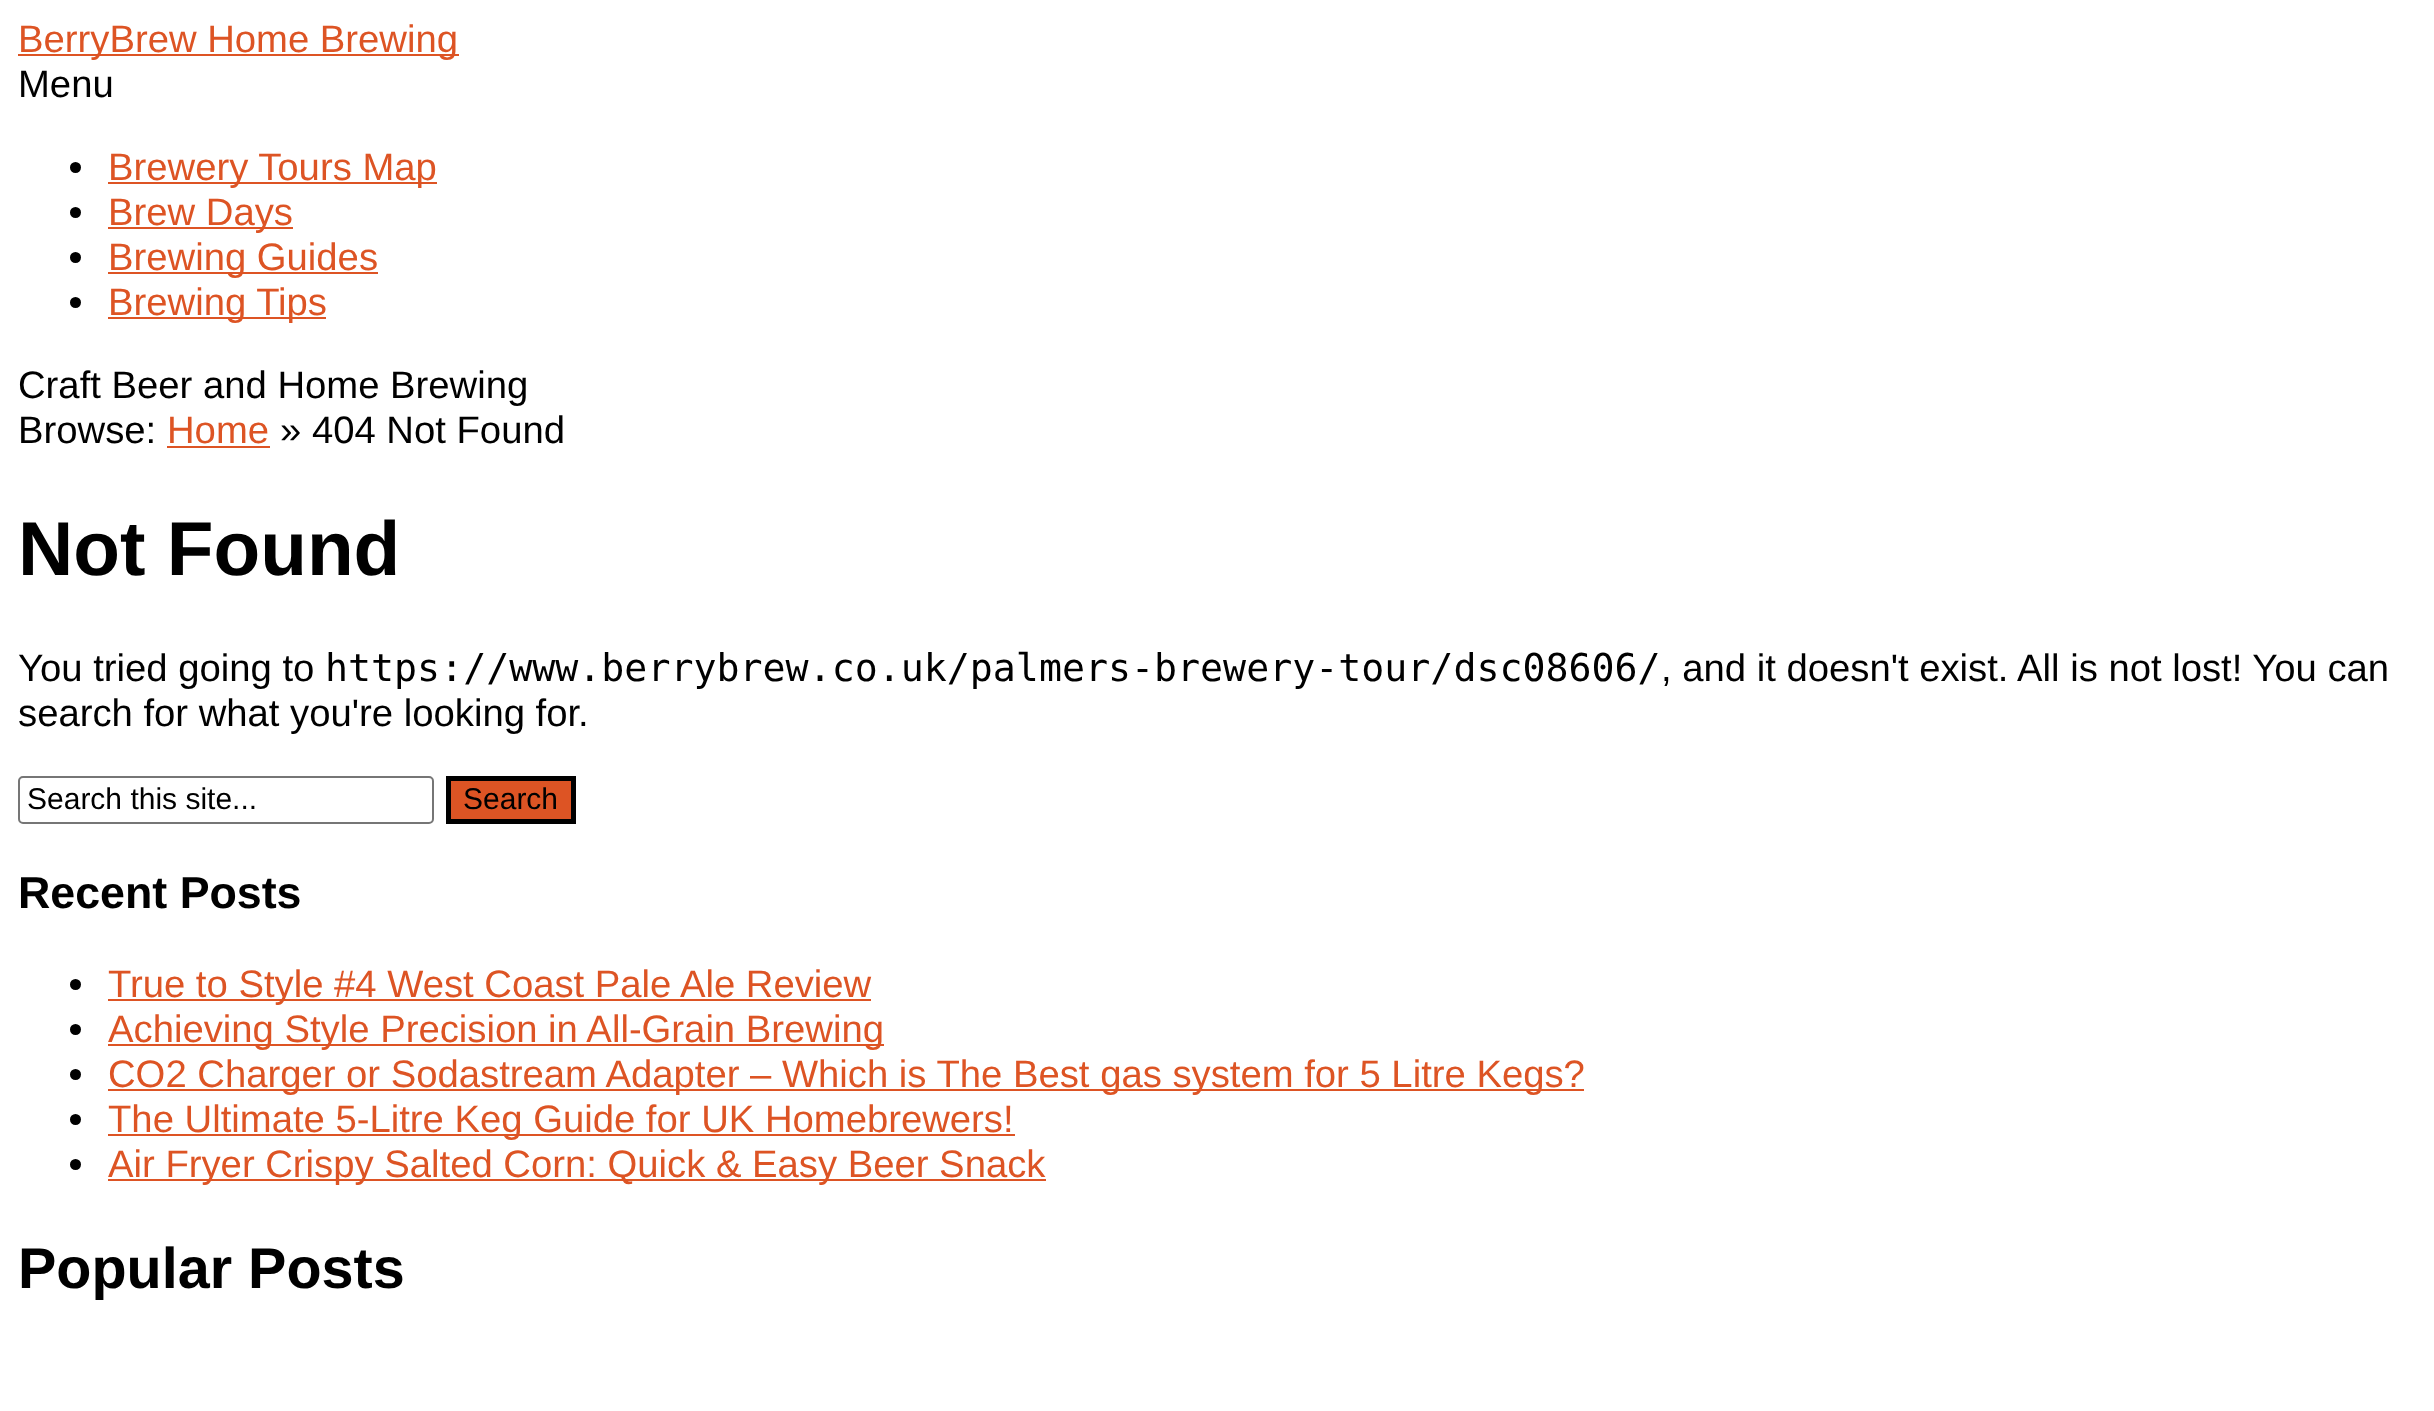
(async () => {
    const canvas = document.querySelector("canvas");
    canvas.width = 2434;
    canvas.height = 1411;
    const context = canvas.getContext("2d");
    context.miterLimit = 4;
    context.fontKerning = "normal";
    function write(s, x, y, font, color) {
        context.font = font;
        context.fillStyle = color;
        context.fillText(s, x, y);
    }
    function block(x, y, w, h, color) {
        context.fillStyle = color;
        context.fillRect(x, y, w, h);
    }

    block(0, 0, 2434, 1411, "rgb(255, 255, 255)");
    block(18, 54, 441, 2, "rgb(221, 84, 36)");
    write("BerryBrew Home Brewing", 18, 52, "38.25px Liberation Sans", "rgb(221, 84, 36)");
    write("Menu", 18, 97, "38.25px Liberation Sans", "rgb(0, 0, 0)");
    context.beginPath();
    context.arc(75.5, 167.5, 5.5, 0, Math.PI * 2);
    context.fill();
    block(108, 182, 329, 2, "rgb(221, 84, 36)");
    write("Brewery Tours Map", 108, 180, "38.25px Liberation Sans", "rgb(221, 84, 36)");
    context.fillStyle = "rgb(0, 0, 0)";
    context.beginPath();
    context.arc(75.5, 212.5, 5.5, 0, Math.PI * 2);
    context.fill();
    block(108, 227, 185, 2, "rgb(221, 84, 36)");
    write("Brew Days", 108, 225, "38.25px Liberation Sans", "rgb(221, 84, 36)");
    context.fillStyle = "rgb(0, 0, 0)";
    context.beginPath();
    context.arc(75.5, 257.5, 5.5, 0, Math.PI * 2);
    context.fill();
    block(108, 272, 270, 2, "rgb(221, 84, 36)");
    write("Brewing Guides", 108, 270, "38.25px Liberation Sans", "rgb(221, 84, 36)");
    context.fillStyle = "rgb(0, 0, 0)";
    context.beginPath();
    context.arc(75.5, 302.5, 5.5, 0, Math.PI * 2);
    context.fill();
    block(108, 317, 218, 2, "rgb(221, 84, 36)");
    write("Brewing Tips", 108, 315, "38.25px Liberation Sans", "rgb(221, 84, 36)");
    write("Craft Beer and Home Brewing", 18, 398, "38.25px Liberation Sans", "rgb(0, 0, 0)");
    write("Browse:", 18, 443, "38.25px Liberation Sans", "rgb(0, 0, 0)");
    write("Home", 167, 443, "38.25px Liberation Sans", "rgb(221, 84, 36)");
    block(167, 446, 103, 2, "rgb(221, 84, 36)");
    write("» 404 Not Found", 280, 443, "38.25px Liberation Sans", "rgb(0, 0, 0)");
    write("Not Found", 18, 575, "bold 76.5px Liberation Sans", "rgb(0, 0, 0)");
    write("You tried going to", 18, 681, "38.25px Liberation Sans", "rgb(0, 0, 0)");
    write("https://www.berrybrew.co.uk/palmers-brewery-tour/dsc08606/", 325, 681, "38.25px DejaVu Sans Mono", "rgb(0, 0, 0)");
    write(", and it doesn't exist. All is not lost! You can", 1661, 681, "38.25px Liberation Sans", "rgb(0, 0, 0)");
    write("search for what you're looking for.", 18, 726, "38.25px Liberation Sans", "rgb(0, 0, 0)");
    context.beginPath();
    context.roundRect(19, 777, 414, 46, 4);
    context.strokeStyle = "rgb(118, 118, 118)";
    context.lineWidth = 2;
    context.stroke();
    write("Search this site...", 27, 809, "30px Liberation Sans", "rgb(0, 0, 0)");
    context.fillStyle = "rgb(221, 84, 36)";
    context.beginPath();
    context.rect(448.5, 778.5, 125, 43);
    context.fill();
    context.strokeStyle = "rgb(0, 0, 0)";
    context.lineWidth = 5;
    context.stroke();
    write("Search", 463, 809, "30px Liberation Sans", "rgb(0, 0, 0)");
    write("Recent Posts", 18, 908, "bold 44.75px Liberation Sans", "rgb(0, 0, 0)");
    context.beginPath();
    context.arc(75.5, 984.5, 5.5, 0, Math.PI * 2);
    context.fill();
    block(108, 999, 763, 2, "rgb(221, 84, 36)");
    write("True to Style #4 West Coast Pale Ale Review", 108, 997, "38.25px Liberation Sans", "rgb(221, 84, 36)");
    context.fillStyle = "rgb(0, 0, 0)";
    context.beginPath();
    context.arc(75.5, 1029.5, 5.5, 0, Math.PI * 2);
    context.fill();
    block(108, 1044, 776, 2, "rgb(221, 84, 36)");
    write("Achieving Style Precision in All-Grain Brewing", 108, 1042, "38.25px Liberation Sans", "rgb(221, 84, 36)");
    context.fillStyle = "rgb(0, 0, 0)";
    context.beginPath();
    context.arc(75.5, 1074.5, 5.5, 0, Math.PI * 2);
    context.fill();
    block(108, 1089, 1476, 2, "rgb(221, 84, 36)");
    write("CO2 Charger or Sodastream Adapter – Which is The Best gas system for 5 Litre Kegs?", 108, 1087, "38.25px Liberation Sans", "rgb(221, 84, 36)");
    context.fillStyle = "rgb(0, 0, 0)";
    context.beginPath();
    context.arc(75.5, 1119.5, 5.5, 0, Math.PI * 2);
    context.fill();
    block(108, 1134, 907, 2, "rgb(221, 84, 36)");
    write("The Ultimate 5-Litre Keg Guide for UK Homebrewers!", 108, 1132, "38.25px Liberation Sans", "rgb(221, 84, 36)");
    context.fillStyle = "rgb(0, 0, 0)";
    context.beginPath();
    context.arc(75.5, 1164.5, 5.5, 0, Math.PI * 2);
    context.fill();
    block(108, 1179, 938, 2, "rgb(221, 84, 36)");
    write("Air Fryer Crispy Salted Corn: Quick & Easy Beer Snack", 108, 1177, "38.25px Liberation Sans", "rgb(221, 84, 36)");
    write("Popular Posts", 18, 1288, "bold 57.5px Liberation Sans", "rgb(0, 0, 0)");
})();
